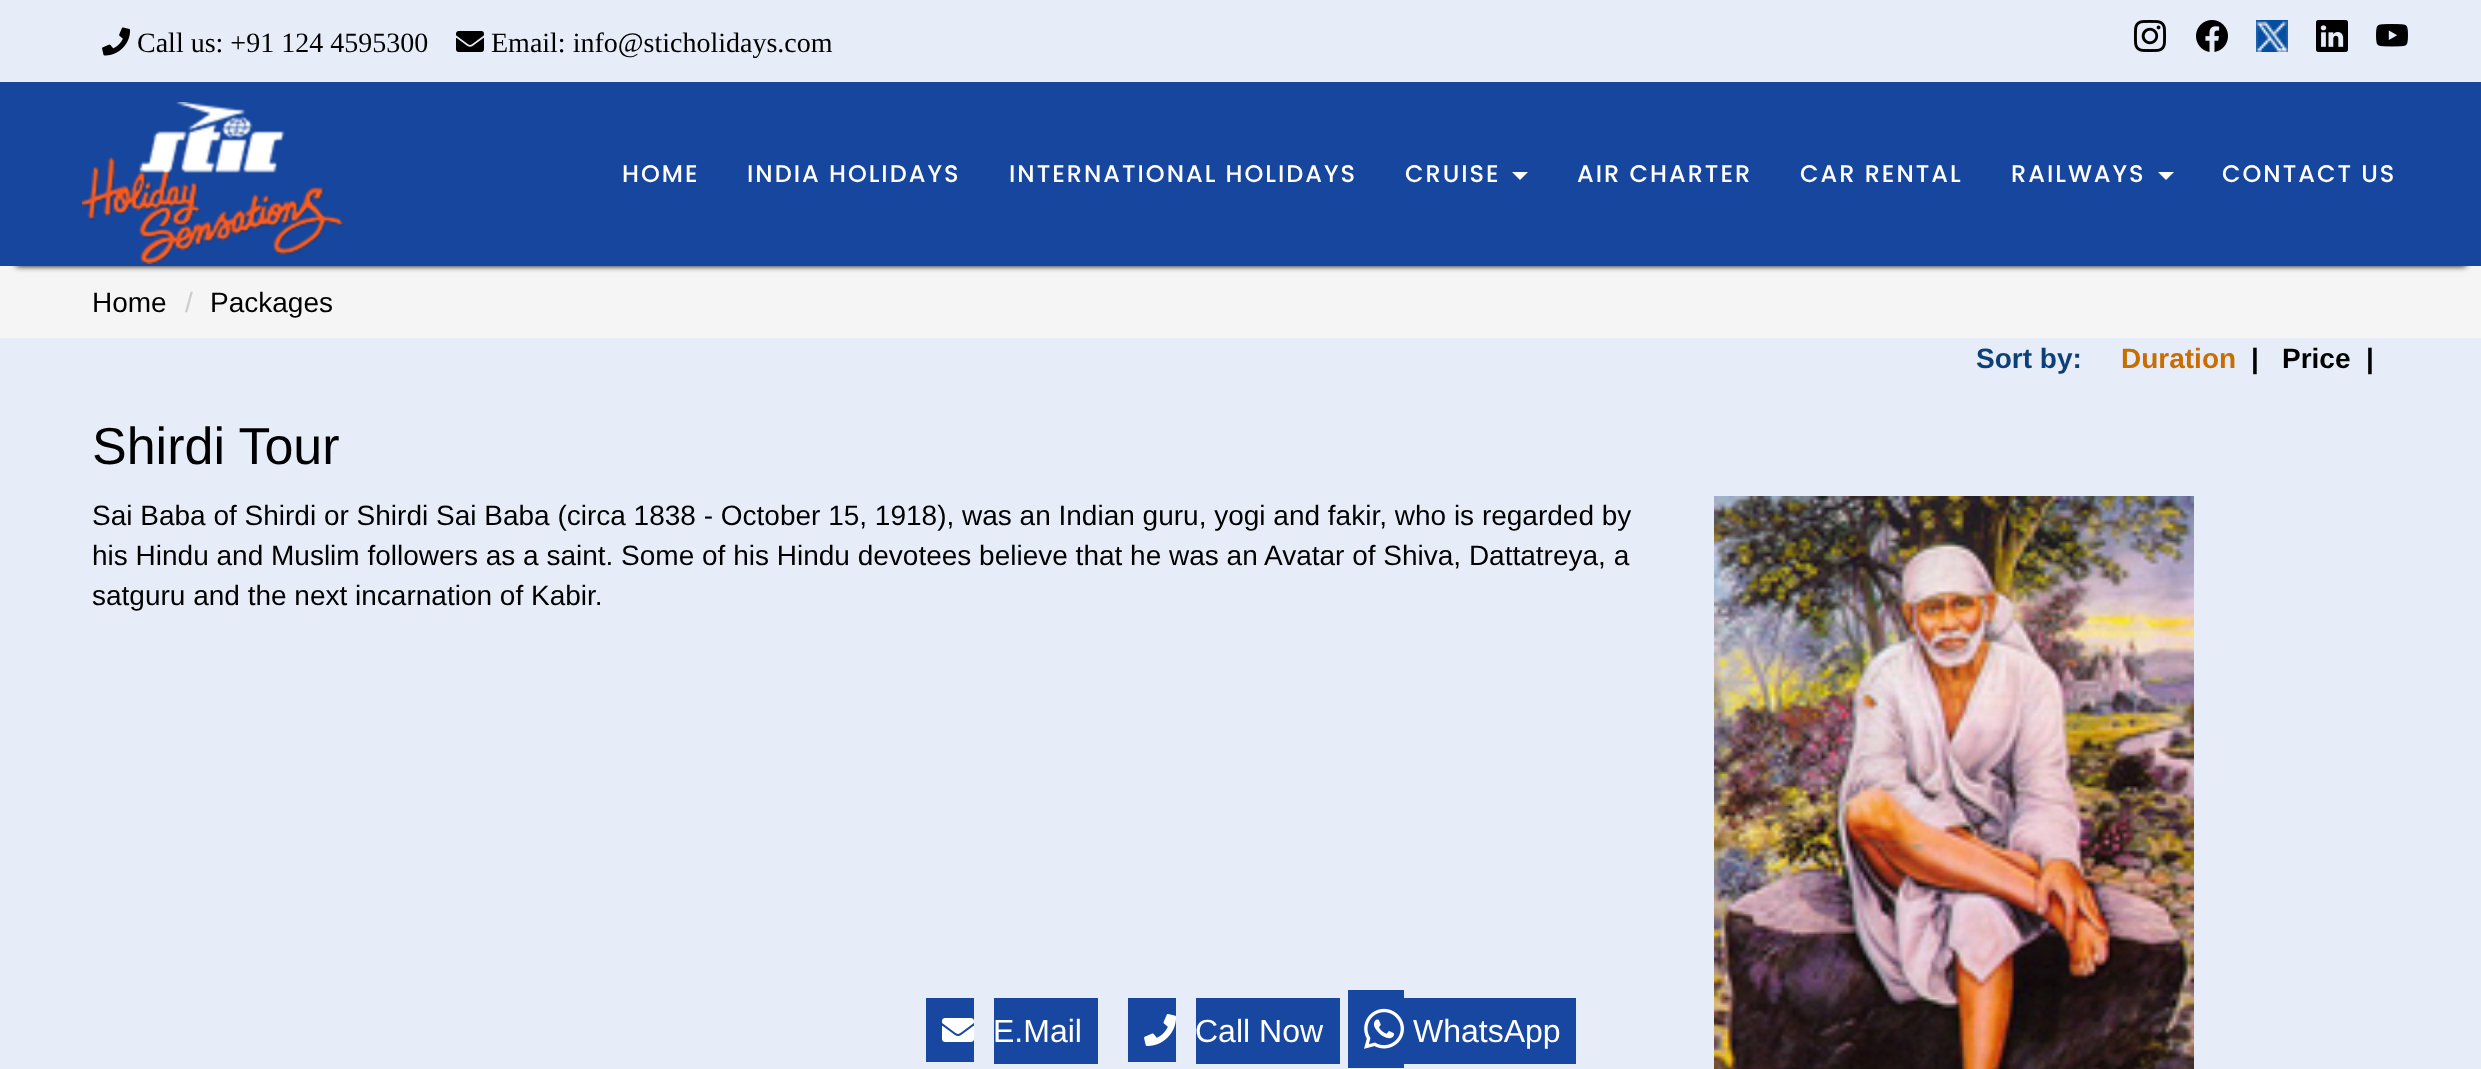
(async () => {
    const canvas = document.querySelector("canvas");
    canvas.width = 2481;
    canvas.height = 1069;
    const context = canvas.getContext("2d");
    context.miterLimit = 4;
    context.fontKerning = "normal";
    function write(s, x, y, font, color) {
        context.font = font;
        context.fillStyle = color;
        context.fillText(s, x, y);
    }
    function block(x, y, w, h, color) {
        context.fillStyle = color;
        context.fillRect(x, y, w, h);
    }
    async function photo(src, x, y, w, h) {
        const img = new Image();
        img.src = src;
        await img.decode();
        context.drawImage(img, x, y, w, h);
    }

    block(0, 0, 2481, 1069, "rgb(230, 237, 249)");
    await photo("media/1.png", 102, 27, 29, 29);
    write("Call us: +91 124 4595300", 137, 52, "28px Liberation Serif", "rgb(0, 0, 0)");
    await photo("media/2.png", 456, 31, 28, 21);
    write("Email: info@sticholidays.com", 491, 52, "28px Liberation Serif", "rgb(0, 0, 0)");
    await photo("media/3.png", 2134, 20, 32, 32);
    await photo("media/4.png", 2196, 20, 32, 32);
    await photo("media/5.png", 2256, 20, 32, 32);
    await photo("media/6.png", 2316, 20, 32, 32);
    await photo("media/7.png", 2376, 24, 32, 23);
    block(0, 266, 2481, 72, "rgb(245, 245, 245)");
    context.fillStyle = "rgb(0, 0, 0)";
    context.filter = "blur(3px)";
    context.beginPath();
    context.rect(16, 114, 2450, 152);
    context.fill();
    context.filter = "none";
    block(0, 82, 2481, 184, "rgb(23, 70, 158)");
    await photo("media/8.png", 82, 102, 261, 162);
    context.letterSpacing = "2px";
    write("HOME", 622, 182, "500 24px Poppins", "rgb(255, 255, 255)");
    write("INDIA HOLIDAYS", 747, 182, "500 24px Poppins", "rgb(255, 255, 255)");
    write("INTERNATIONAL HOLIDAYS", 1009, 182, "500 24px Poppins", "rgb(255, 255, 255)");
    write("CRUISE", 1405, 182, "500 24px Poppins", "rgb(255, 255, 255)");
    context.beginPath();
    context.moveTo(1512, 172);
    context.lineTo(1528, 172);
    context.lineTo(1520, 180);
    context.closePath();
    context.fill();
    write("AIR CHARTER", 1577, 182, "500 24px Poppins", "rgb(255, 255, 255)");
    write("CAR RENTAL", 1800, 182, "500 24px Poppins", "rgb(255, 255, 255)");
    write("RAILWAYS", 2011, 182, "500 24px Poppins", "rgb(255, 255, 255)");
    context.beginPath();
    context.moveTo(2158, 172);
    context.lineTo(2174, 172);
    context.lineTo(2166, 180);
    context.closePath();
    context.fill();
    write("CONTACT US", 2222, 182, "500 24px Poppins", "rgb(255, 255, 255)");
    context.letterSpacing = "0px";
    write("Home", 92, 312, "28px Liberation Sans", "rgb(0, 0, 0)");
    write("/", 185, 312, "28px Liberation Sans", "rgb(204, 204, 204)");
    write("Packages", 210, 312, "28px Liberation Sans", "rgb(0, 0, 0)");
    write("Sort by:", 1976, 368, "bold 28px Liberation Sans", "rgb(12, 64, 119)");
    write("Duration", 2121, 368, "bold 28px Liberation Sans", "rgb(202, 109, 0)");
    write("|", 2251, 368, "bold 28px Liberation Sans", "rgb(0, 0, 0)");
    write("Price  |", 2282, 368, "bold 28px Liberation Sans", "rgb(0, 0, 0)");
    write("Shirdi Tour", 92, 464, "52px Liberation Sans", "rgb(0, 0, 0)");
    write("Sai Baba of Shirdi or Shirdi Sai Baba (circa 1838 - October 15, 1918), was an Indian guru, yogi and fakir, who is regarded by", 92, 525, "28px Liberation Sans", "rgb(0, 0, 0)");
    write("his Hindu and Muslim followers as a saint. Some of his Hindu devotees believe that he was an Avatar of Shiva, Dattatreya, a", 92, 565, "28px Liberation Sans", "rgb(0, 0, 0)");
    write("satguru and the next incarnation of Kabir.", 92, 605, "28px Liberation Sans", "rgb(0, 0, 0)");
    await photo("media/9.png", 1714, 496, 480, 573);
    block(926, 998, 48, 64, "rgb(23, 71, 160)");
    block(994, 998, 104, 66, "rgb(23, 71, 160)");
    await photo("media/10.png", 942, 1018, 32, 24);
    write("E.Mail", 993, 1042, "32px Liberation Sans", "rgb(255, 255, 255)");
    block(1128, 998, 48, 64, "rgb(23, 71, 160)");
    block(1196, 998, 144, 66, "rgb(23, 71, 160)");
    await photo("media/11.png", 1144, 1014, 32, 32);
    write("Call Now", 1195, 1042, "32px Liberation Sans", "rgb(255, 255, 255)");
    block(1348, 990, 56, 78, "rgb(23, 71, 160)");
    await photo("media/12.png", 1364, 1008, 40, 41);
    block(1404, 998, 172, 66, "rgb(23, 71, 160)");
    write("WhatsApp", 1413, 1042, "32px Liberation Sans", "rgb(255, 255, 255)");
})();
